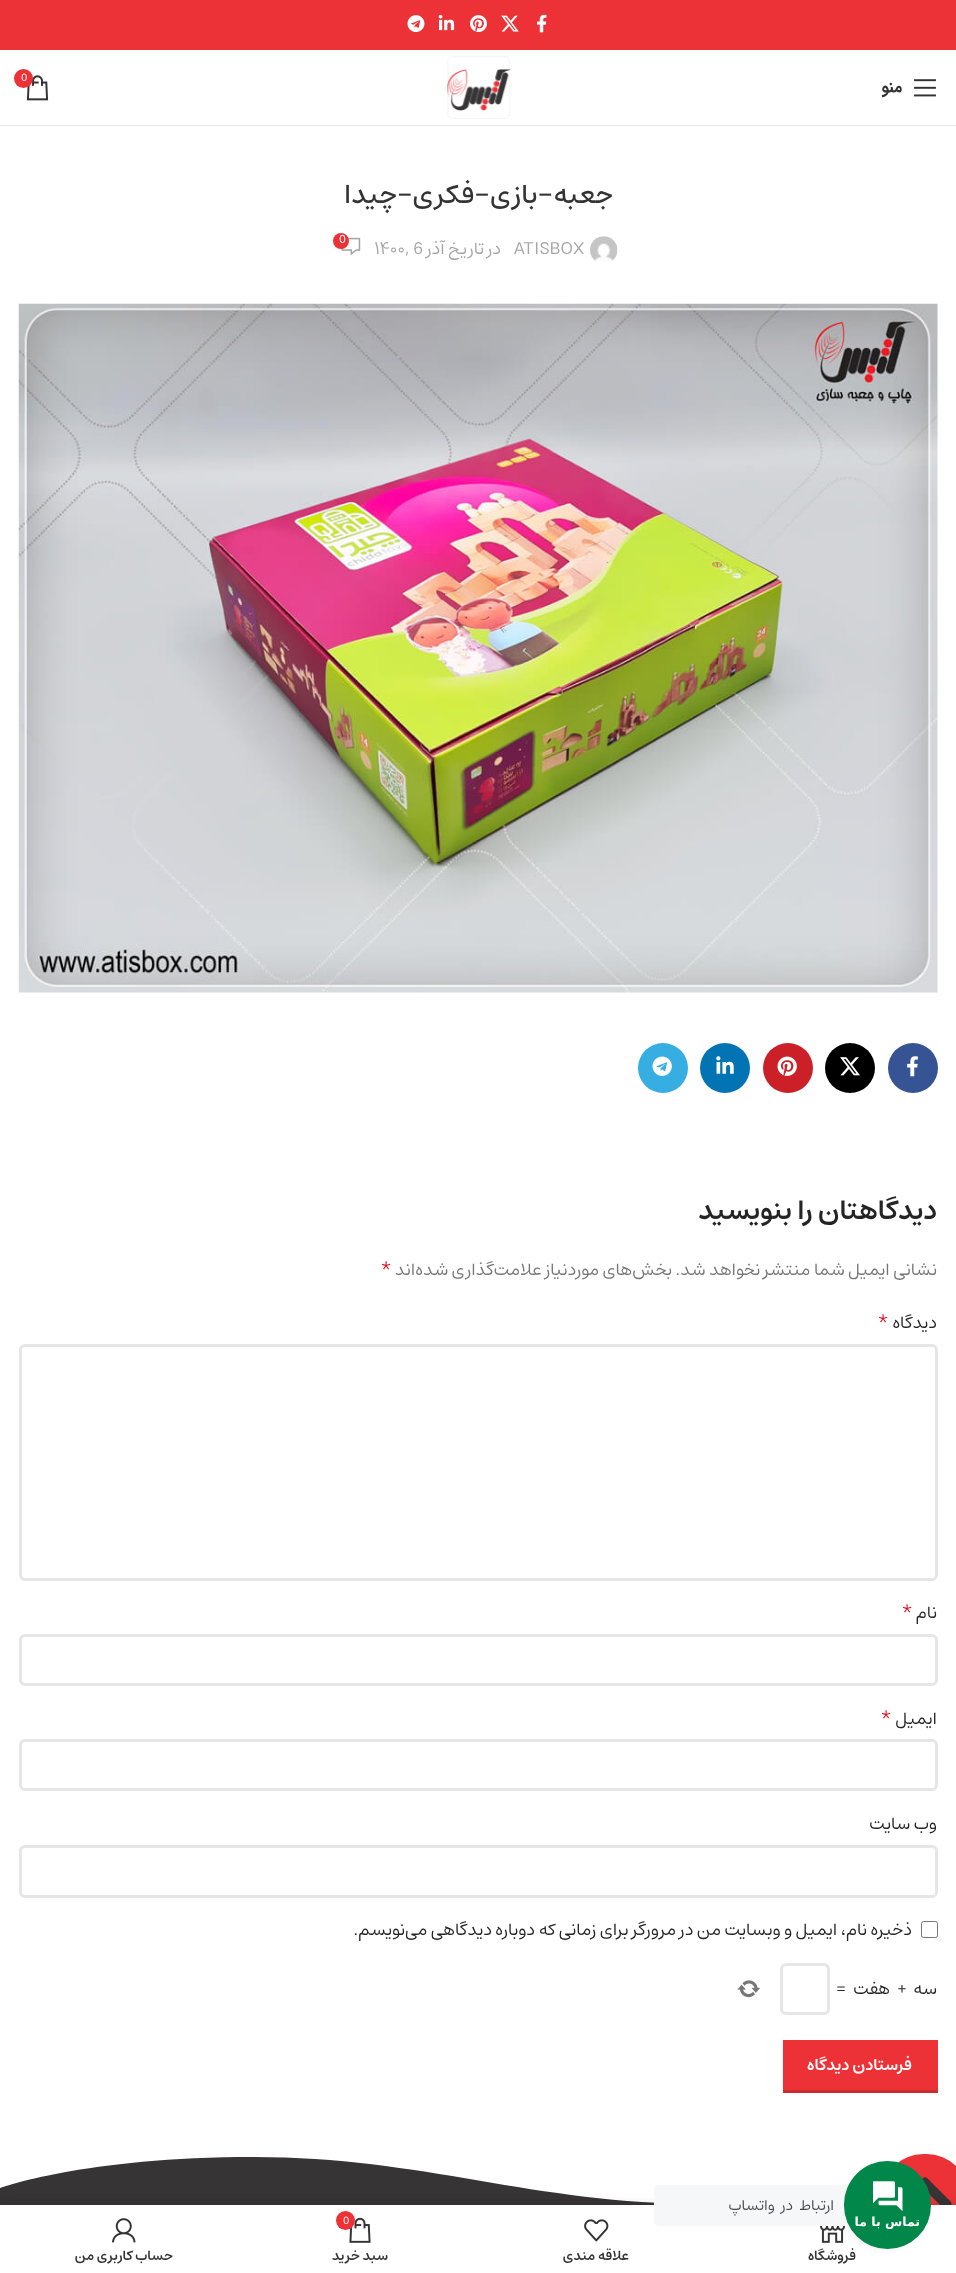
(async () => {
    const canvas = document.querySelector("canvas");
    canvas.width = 956;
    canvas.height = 2273;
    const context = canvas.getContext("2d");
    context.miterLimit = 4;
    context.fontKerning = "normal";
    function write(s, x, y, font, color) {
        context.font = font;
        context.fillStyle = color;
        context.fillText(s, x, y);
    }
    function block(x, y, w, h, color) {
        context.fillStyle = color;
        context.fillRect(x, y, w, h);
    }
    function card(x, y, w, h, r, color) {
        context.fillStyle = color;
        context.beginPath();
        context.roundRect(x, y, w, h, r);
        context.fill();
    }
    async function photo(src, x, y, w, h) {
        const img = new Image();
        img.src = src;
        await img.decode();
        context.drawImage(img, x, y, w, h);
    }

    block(0, 0, 956, 2273, "rgb(255, 255, 255)");
    block(0, 0, 956, 50, "rgb(237, 50, 55)");
    await photo("media/1.png", 537, 14, 10, 19);
    await photo("media/2.png", 501, 15, 18, 17);
    await photo("media/3.png", 470, 15, 17, 18);
    await photo("media/4.png", 438, 14, 17, 17);
    await photo("media/5.png", 407, 15, 18, 18);
    block(0, 125, 956, 1, "rgb(230, 230, 230)");
    await photo("media/6.png", 447, 56, 64, 63);
    await photo("media/7.png", 26, 75, 23, 26);
    context.fillStyle = "rgb(237, 50, 55)";
    context.beginPath();
    context.arc(23.5, 78.5, 9.5, 0, Math.PI * 2);
    context.fill();
    write("0", 21, 81, "11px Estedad", "rgb(255, 255, 255)");
    await photo("media/8.png", 914, 79, 22, 18);
    context.direction = "rtl";
    write("منو", 902, 92, "bold 16.25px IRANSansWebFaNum", "rgb(51, 51, 51)");
    write("جعبه-بازی-فکری-چیدا", 613, 203, "500 27.5px Estedad", "rgb(51, 51, 51)");
    await photo("media/9.png", 590, 236, 28, 25);
    context.direction = "ltr";
    write("ATISBOX", 514, 254, "17.5px Estedad", "rgb(165, 165, 165)");
    context.direction = "rtl";
    write("در تاریخ آذر", 501, 254, "17.5px Estedad", "rgb(165, 165, 165)");
    context.direction = "ltr";
    write(", 6", 405, 254, "17.5px Estedad", "rgb(165, 165, 165)");
    write("1400", 374, 254, "17.5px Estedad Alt", "rgb(165, 165, 165)");
    await photo("media/10.png", 341, 237, 20, 19);
    context.fillStyle = "rgb(237, 50, 55)";
    context.beginPath();
    context.arc(341, 241, 8, 0, Math.PI * 2);
    context.fill();
    write("0", 339, 243, "12px Estedad", "rgb(255, 255, 255)");
    await photo("media/11.png", 18, 303, 920, 690);
    context.fillStyle = "rgb(54, 84, 147)";
    context.beginPath();
    context.arc(913, 1068, 25, 0, Math.PI * 2);
    context.fill();
    await photo("media/12.png", 907, 1056, 11, 21);
    context.fillStyle = "rgb(0, 0, 0)";
    context.beginPath();
    context.arc(850, 1068, 25, 0, Math.PI * 2);
    context.fill();
    await photo("media/13.png", 840, 1057, 20, 19);
    context.fillStyle = "rgb(203, 32, 39)";
    context.beginPath();
    context.arc(788, 1068, 25, 0, Math.PI * 2);
    context.fill();
    await photo("media/14.png", 777, 1056, 20, 20);
    context.fillStyle = "rgb(2, 116, 179)";
    context.beginPath();
    context.arc(725, 1068, 25, 0, Math.PI * 2);
    context.fill();
    await photo("media/15.png", 716, 1056, 18, 18);
    context.fillStyle = "rgb(55, 174, 226)";
    context.beginPath();
    context.arc(663, 1068, 25, 0, Math.PI * 2);
    context.fill();
    await photo("media/16.png", 652, 1056, 20, 20);
    context.direction = "rtl";
    write("دیدگاهتان را بنویسید", 937, 1219, "600 27.5px Estedad", "rgb(36, 36, 36)");
    write("نشانی ایمیل شما منتشر نخواهد شد.", 937, 1275, "17.5px Estedad", "rgb(118, 118, 118)");
    write("بخش‌های موردنیاز علامت‌گذاری شده‌اند", 672, 1275, "17.5px Estedad", "rgb(118, 118, 118)");
    context.direction = "ltr";
    write("*", 380, 1275, "20px Estedad", "rgb(224, 16, 32)");
    context.direction = "rtl";
    write("دیدگاه", 937, 1328, "17.5px Estedad", "rgb(36, 36, 36)");
    context.direction = "ltr";
    write("*", 877, 1328, "20px Estedad", "rgb(224, 16, 32)");
    context.beginPath();
    context.roundRect(20.5, 1345.5, 916, 234, 4.5);
    context.strokeStyle = "rgb(230, 230, 230)";
    context.lineWidth = 3;
    context.stroke();
    context.direction = "rtl";
    write("نام", 937, 1618, "17.5px Estedad", "rgb(36, 36, 36)");
    context.direction = "ltr";
    write("*", 901, 1618, "20px Estedad", "rgb(224, 16, 32)");
    context.beginPath();
    context.roundRect(20.5, 1635.5, 916, 49, 4.5);
    context.stroke();
    context.direction = "rtl";
    write("ایمیل", 937, 1724, "17.5px Estedad", "rgb(36, 36, 36)");
    context.direction = "ltr";
    write("*", 880, 1724, "20px Estedad", "rgb(224, 16, 32)");
    context.beginPath();
    context.roundRect(20.5, 1740.5, 916, 49, 4.5);
    context.stroke();
    context.direction = "rtl";
    write("وب‌ سایت", 937, 1829, "17.5px Estedad", "rgb(36, 36, 36)");
    context.beginPath();
    context.roundRect(20.5, 1846.5, 916, 50, 4.5);
    context.stroke();
    context.beginPath();
    context.roundRect(921.5, 1921.5, 16, 16, 2);
    context.strokeStyle = "rgb(118, 118, 118)";
    context.lineWidth = 1;
    context.stroke();
    write("ذخیره نام، ایمیل و وبسایت من در مرورگر برای زمانی که دوباره دیدگاهی می‌نویسم.", 912, 1935, "17.5px Estedad", "rgb(36, 36, 36)");
    write("سه", 937, 1994, "17.5px Estedad", "rgb(36, 36, 36)");
    context.direction = "ltr";
    write("+", 897, 1994, "17.5px Estedad", "rgb(36, 36, 36)");
    context.direction = "rtl";
    write("هفت", 890, 1994, "17.5px Estedad", "rgb(36, 36, 36)");
    context.direction = "ltr";
    write("=", 836, 1994, "17.5px Estedad", "rgb(36, 36, 36)");
    context.beginPath();
    context.roundRect(781.5, 1964.5, 47, 49, 4.5);
    context.strokeStyle = "rgb(230, 230, 230)";
    context.lineWidth = 3;
    context.stroke();
    await photo("media/17.png", 737, 1980, 23, 18);
    block(783, 2040, 155, 50, "rgb(237, 50, 55)");
    block(783, 2090, 155, 3, "rgb(201, 43, 47)");
    context.direction = "rtl";
    write("فرستادن دیدگاه", 912, 2070, "600 16.25px Estedad", "rgb(255, 255, 255)");
    block(0, 2157, 654, 48, "rgb(55, 52, 53)");
    context.fillStyle = "rgb(255, 255, 255)";
    context.beginPath();
    context.moveTo(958, 2188);
    context.bezierCurveTo(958, 2188, 873, 2204, 703, 2204);
    context.bezierCurveTo(533, 2204, 424, 2157, 254, 2157);
    context.bezierCurveTo(84, 2157, 0, 2188, 0, 2188);
    context.lineTo(0, 2141);
    context.lineTo(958, 2141);
    context.closePath();
    context.fill();
    card(881, 2154, 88, 85, 42.5, "rgb(237, 50, 55)");
    context.fillStyle = "rgb(55, 52, 53)";
    context.beginPath();
    context.moveTo(927, 2178);
    context.lineTo(947, 2198);
    context.bezierCurveTo(951, 2202, 954, 2203, 949, 2208);
    context.lineTo(947, 2210);
    context.lineTo(944, 2209);
    context.lineTo(925, 2190);
    context.lineTo(906, 2209);
    context.bezierCurveTo(905, 2210, 903, 2210, 902, 2209);
    context.lineTo(899, 2206);
    context.bezierCurveTo(898, 2205, 898, 2203, 899, 2202);
    context.lineTo(923, 2178);
    context.bezierCurveTo(924, 2177, 926, 2177, 927, 2178);
    context.closePath();
    context.fill();
    context.fillStyle = "rgba(0, 0, 0, 0.12)";
    context.filter = "blur(5.5px)";
    context.beginPath();
    context.rect(0, 2205, 956, 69);
    context.fill();
    context.filter = "none";
    block(0, 2205, 956, 68, "rgb(255, 255, 255)");
    await photo("media/19.png", 820, 2225, 25, 18);
    context.fillStyle = "rgba(0, 0, 0, 0.14)";
    context.filter = "blur(5px)";
    context.beginPath();
    context.roundRect(846, 2171, 75, 75, 37.5);
    context.fill();
    context.filter = "none";
    card(654, 2185, 195, 41, 5, "rgb(245, 247, 249)");
    context.letterSpacing = "-0.5px";
    context.wordSpacing = "4px";
    write("ارتباط در واتساپ", 834, 2210, "15px Estedad", "rgb(67, 71, 78)");
    context.letterSpacing = "0px";
    context.wordSpacing = "0px";
    write("فروشگاه", 856, 2260, "600 13.75px Estedad", "rgb(51, 51, 51)");
    card(844, 2161, 87, 88, 43.5, "rgb(0, 135, 73)");
    await photo("media/18.png", 873, 2181, 30, 30);
    write("تماس با ما", 920, 2226, "bold 12.5px DejaVu Sans", "rgb(255, 255, 255)");
    await photo("media/20.png", 584, 2219, 25, 23);
    write("علاقه مندی", 629, 2260, "600 13.75px Estedad", "rgb(51, 51, 51)");
    await photo("media/21.png", 349, 2217, 22, 26);
    context.fillStyle = "rgb(237, 50, 55)";
    context.beginPath();
    context.arc(345.5, 2220.5, 9.5, 0, Math.PI * 2);
    context.fill();
    context.direction = "ltr";
    write("0", 343, 2224, "11px Estedad", "rgb(255, 255, 255)");
    context.direction = "rtl";
    write("سبد خرید", 388, 2260, "600 13.75px Estedad", "rgb(51, 51, 51)");
    await photo("media/22.png", 112, 2218, 24, 25);
    write("حساب کاربری من", 173, 2260, "600 13.75px Estedad", "rgb(51, 51, 51)");
})();
